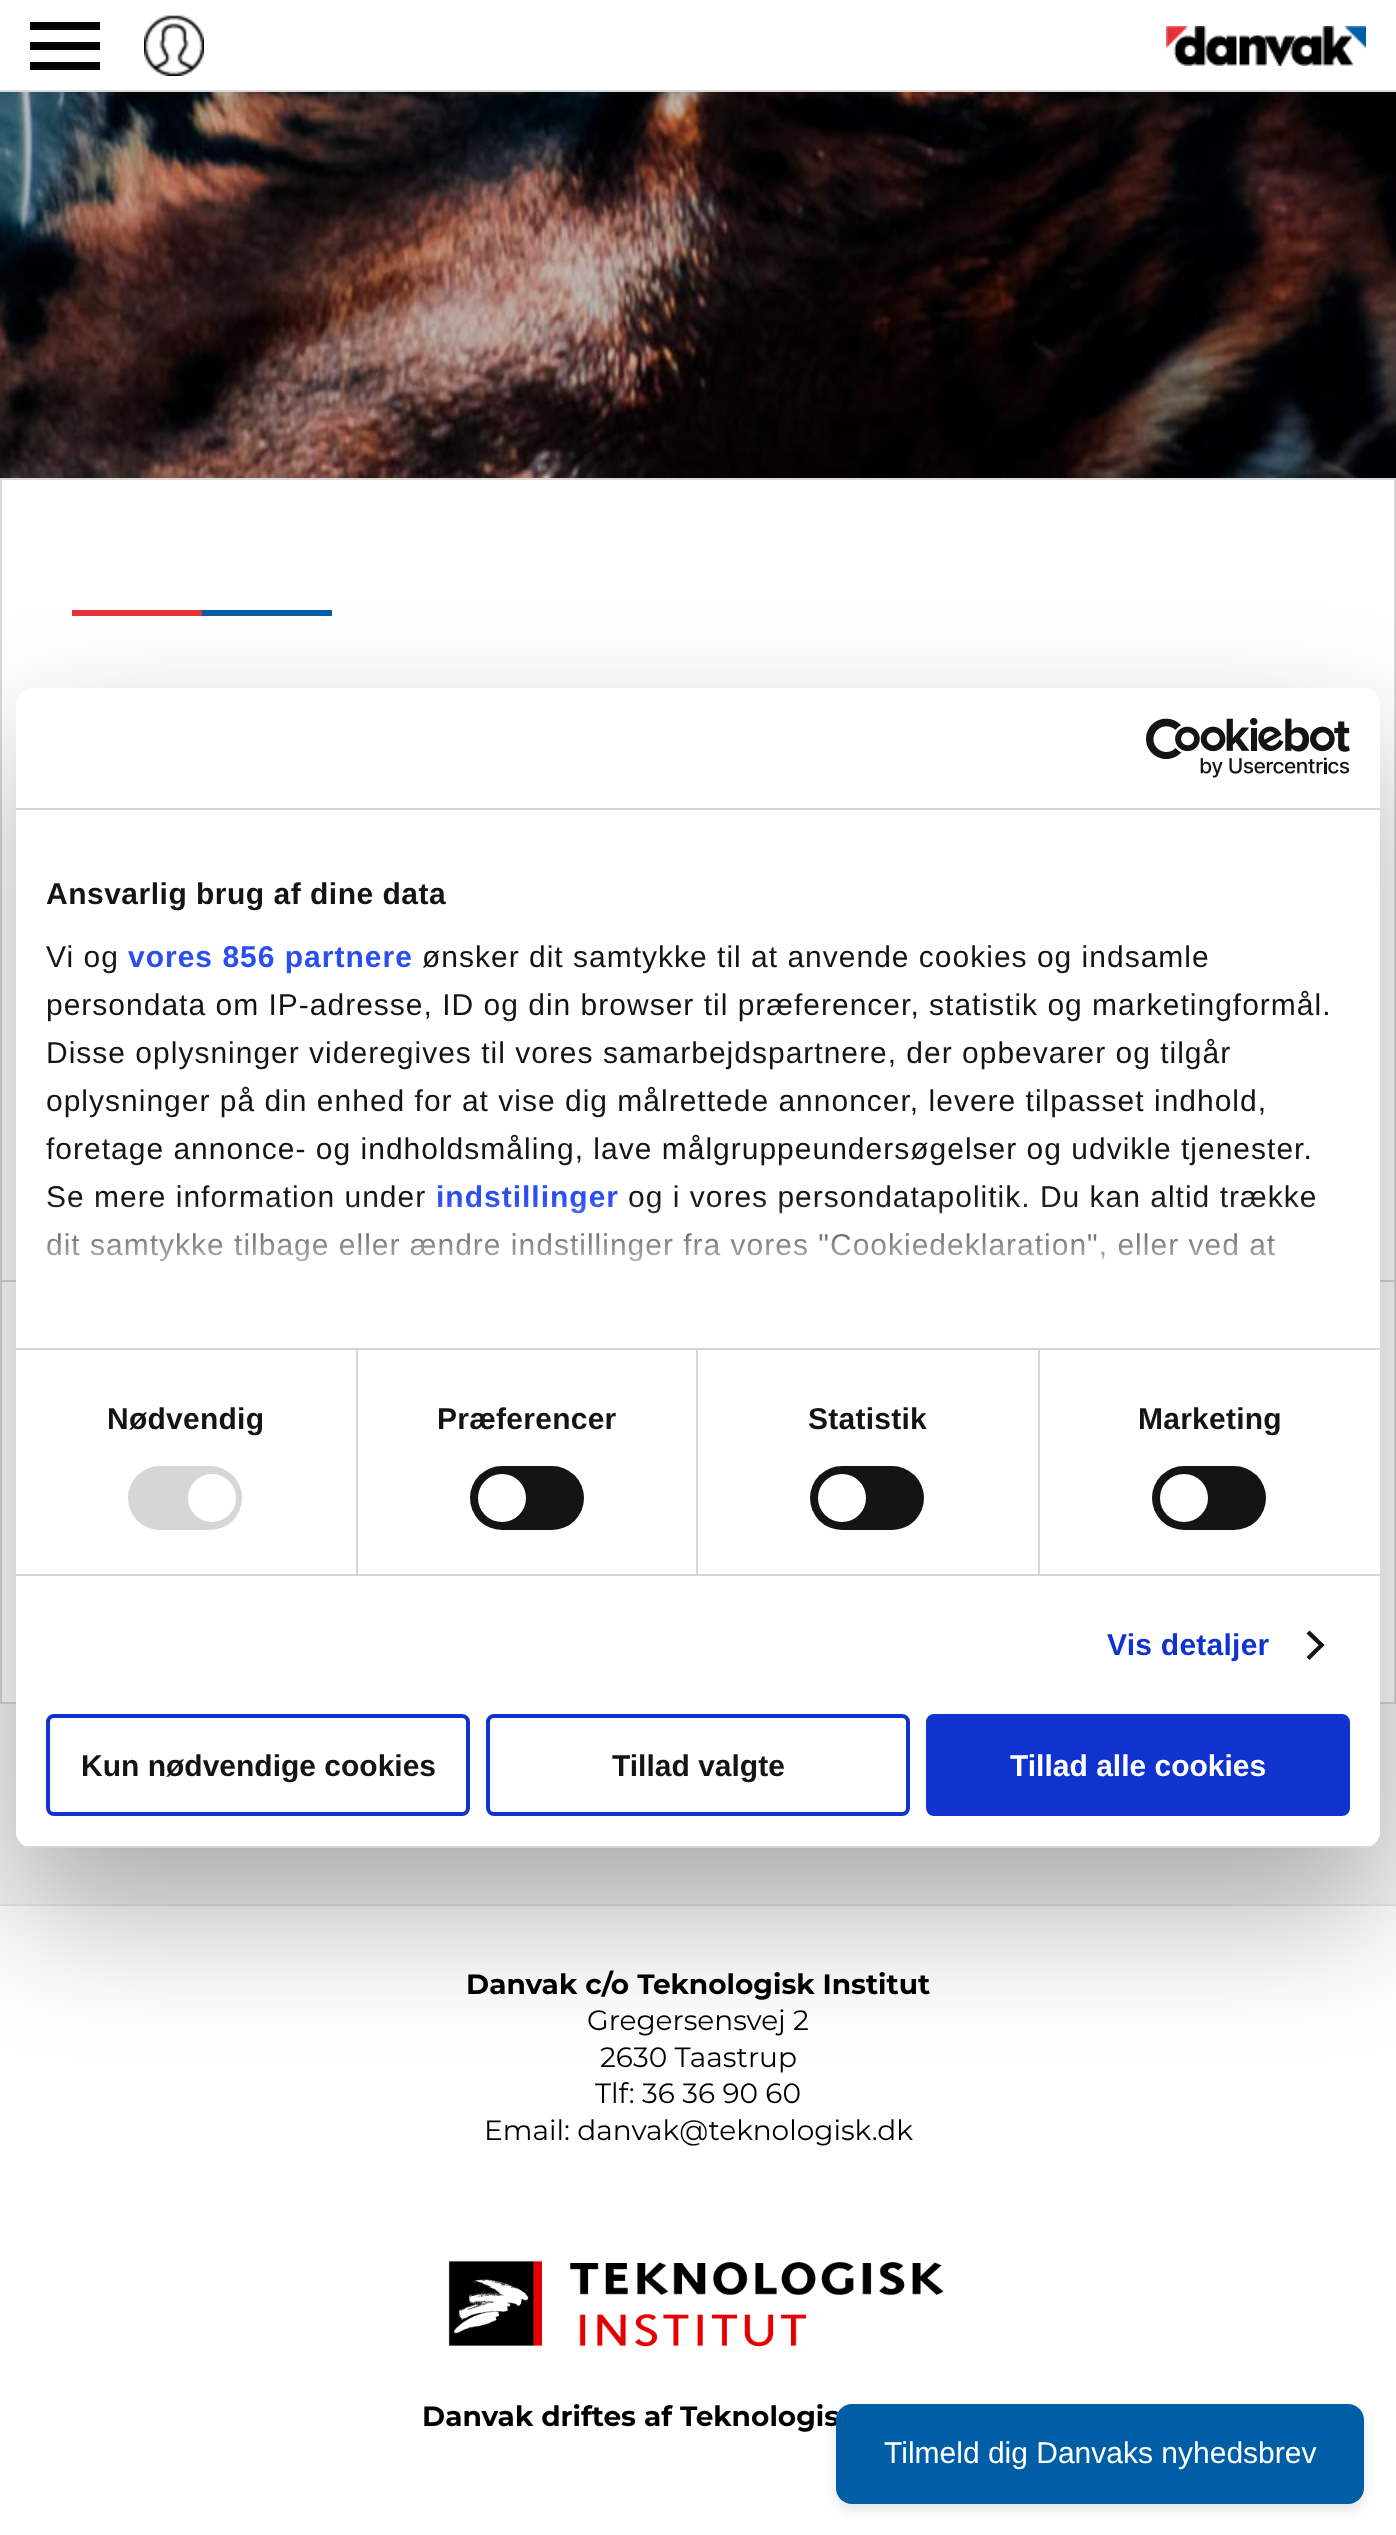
(async () => {
    const canvas = document.querySelector("canvas");
    canvas.width = 1396;
    canvas.height = 2535;
    const context = canvas.getContext("2d");
    context.miterLimit = 4;
    context.fontKerning = "normal";
    function write(s, x, y, font, color) {
        context.font = font;
        context.fillStyle = color;
        context.fillText(s, x, y);
    }
    function block(x, y, w, h, color) {
        context.fillStyle = color;
        context.fillRect(x, y, w, h);
    }
    function card(x, y, w, h, r, color) {
        context.fillStyle = color;
        context.beginPath();
        context.roundRect(x, y, w, h, r);
        context.fill();
    }
    async function photo(src, x, y, w, h) {
        const img = new Image();
        img.src = src;
        await img.decode();
        context.drawImage(img, x, y, w, h);
    }
    let gradient;

    block(0, 0, 1396, 2535, "rgb(255, 255, 255)");
    block(0, 90, 1396, 2, "rgb(218, 218, 218)");
    block(30, 22, 70, 8, "rgb(0, 0, 0)");
    block(30, 42, 70, 8, "rgb(0, 0, 0)");
    block(30, 62, 70, 8, "rgb(0, 0, 0)");
    await photo("media/1.png", 144, 15, 60, 61);
    await photo("media/2.png", 1166, 26, 200, 40);
    await photo("media/3.png", 0, 92, 1396, 386);
    block(0, 1704, 1396, 200, "rgb(245, 245, 245)");
    context.strokeStyle = "rgb(218, 218, 218)";
    context.lineWidth = 2;
    context.strokeRect(1, 479, 1394, 1224);
    block(72, 610, 130, 6, "rgb(228, 51, 52)");
    block(202, 610, 130, 6, "rgb(0, 94, 167)");
    block(2, 1280, 1392, 2, "rgb(218, 218, 218)");
    block(0, 1904, 1396, 2, "rgb(232, 232, 232)");
    context.fillStyle = "rgba(0, 0, 0, 0.3)";
    context.filter = "blur(68px)";
    context.beginPath();
    context.roundRect(16, 752, 1364, 1160, 16);
    context.fill();
    context.filter = "none";
    card(16, 688, 1364, 1160, 16, "rgb(255, 255, 255)");
    block(16, 808, 1364, 2, "rgb(214, 214, 214)");
    await photo("media/4.png", 1146, 718, 204, 60);
    block(16, 1348, 1364, 2, "rgb(214, 214, 214)");
    context.letterSpacing = "0.5px";
    write("Ansvarlig brug af dine data", 46, 904, "bold 30px Liberation Sans", "rgb(20, 20, 20)");
    context.letterSpacing = "1px";
    write("Vi og", 46, 967, "30px Liberation Sans", "rgb(20, 20, 20)");
    write("vores 856 partnere", 128, 967, "bold 30px Liberation Sans", "rgb(42, 78, 239)");
    write("ønsker dit samtykke til at anvende cookies og indsamle", 422, 967, "30px Liberation Sans", "rgb(20, 20, 20)");
    write("persondata om IP-adresse, ID og din browser til præferencer, statistik og marketingformål.", 46, 1015, "30px Liberation Sans", "rgb(20, 20, 20)");
    write("Disse oplysninger videregives til vores samarbejdspartnere, der opbevarer og tilgår", 46, 1063, "30px Liberation Sans", "rgb(20, 20, 20)");
    write("oplysninger på din enhed for at vise dig målrettede annoncer, levere tilpasset indhold,", 46, 1111, "30px Liberation Sans", "rgb(20, 20, 20)");
    write("foretage annonce- og indholdsmåling, lave målgruppeundersøgelser og udvikle tjenester.", 46, 1159, "30px Liberation Sans", "rgb(20, 20, 20)");
    write("Se mere information under", 46, 1207, "30px Liberation Sans", "rgb(20, 20, 20)");
    write("indstillinger", 436, 1207, "bold 30px Liberation Sans", "rgb(42, 78, 239)");
    write("og i vores persondatapolitik. Du kan altid trække", 628, 1207, "30px Liberation Sans", "rgb(20, 20, 20)");
    write("dit samtykke tilbage eller ændre indstillinger fra vores \"Cookiedeklaration\", eller ved at", 46, 1255, "30px Liberation Sans", "rgb(20, 20, 20)");
    gradient = context.createLinearGradient(685, 1348, 685, 1198);
    gradient.addColorStop(0, "rgb(255, 255, 255)");
    gradient.addColorStop(0.5, "rgba(255, 255, 255, 0.8)");
    gradient.addColorStop(1, "rgba(255, 255, 255, 0)");
    context.fillStyle = gradient;
    context.fillRect(47, 1200, 1268, 62);
    block(16, 1574, 1364, 2, "rgb(214, 214, 214)");
    block(356, 1350, 2, 224, "rgb(214, 214, 214)");
    context.letterSpacing = "0.25px";
    write("Nødvendig", 107, 1429, "bold 30px Liberation Sans", "rgb(20, 20, 20)");
    card(128, 1466, 114, 64, 32, "rgb(214, 214, 214)");
    context.fillStyle = "rgb(255, 255, 255)";
    context.beginPath();
    context.arc(212, 1498, 24, 0, Math.PI * 2);
    context.fill();
    block(696, 1350, 2, 224, "rgb(214, 214, 214)");
    write("Præferencer", 437, 1429, "bold 30px Liberation Sans", "rgb(20, 20, 20)");
    card(470, 1466, 114, 64, 32, "rgb(20, 20, 20)");
    context.fillStyle = "rgb(255, 255, 255)";
    context.beginPath();
    context.arc(502, 1498, 24, 0, Math.PI * 2);
    context.fill();
    block(1038, 1350, 2, 224, "rgb(214, 214, 214)");
    write("Statistik", 808, 1429, "bold 30px Liberation Sans", "rgb(20, 20, 20)");
    card(810, 1466, 114, 64, 32, "rgb(20, 20, 20)");
    context.fillStyle = "rgb(255, 255, 255)";
    context.beginPath();
    context.arc(842, 1498, 24, 0, Math.PI * 2);
    context.fill();
    write("Marketing", 1138, 1429, "bold 30px Liberation Sans", "rgb(20, 20, 20)");
    card(1152, 1466, 114, 64, 32, "rgb(20, 20, 20)");
    context.fillStyle = "rgb(255, 255, 255)";
    context.beginPath();
    context.arc(1184, 1498, 24, 0, Math.PI * 2);
    context.fill();
    write("Vis detaljer", 1107, 1655, "bold 30px Liberation Sans", "rgb(16, 50, 207)");
    context.fillStyle = "rgb(20, 20, 20)";
    context.beginPath();
    context.moveTo(1309.5, 1630.5);
    context.lineTo(1324.5, 1645);
    context.lineTo(1321.5, 1648);
    context.lineTo(1306.5, 1633.5);
    context.closePath();
    context.fill();
    context.beginPath();
    context.moveTo(1321.5, 1642.5);
    context.lineTo(1324.5, 1645);
    context.lineTo(1309.5, 1660);
    context.lineTo(1306.5, 1657);
    context.closePath();
    context.fill();
    context.save();
    context.beginPath();
    context.roundRect(16, 688, 1364, 1160, 16);
    context.clip();
    block(16, 1846, 1364, 2, "rgb(214, 214, 214)");
    context.restore();
    context.beginPath();
    context.roundRect(48, 1716, 420, 98, 6);
    context.strokeStyle = "rgb(16, 50, 207)";
    context.lineWidth = 4;
    context.stroke();
    context.letterSpacing = "0px";
    write("Kun nødvendige cookies", 81, 1776, "bold 30px Liberation Sans", "rgb(20, 20, 20)");
    context.beginPath();
    context.roundRect(488, 1716, 420, 98, 6);
    context.stroke();
    write("Tillad valgte", 612, 1776, "bold 30px Liberation Sans", "rgb(20, 20, 20)");
    context.fillStyle = "rgb(16, 50, 207)";
    context.beginPath();
    context.roundRect(928, 1716, 420, 98, 6);
    context.fill();
    context.stroke();
    write("Tillad alle cookies", 1010, 1776, "bold 30px Liberation Sans", "rgb(255, 255, 255)");
    write("Danvak c/o Teknologisk Institut", 466, 1994, "bold 28px Montserrat", "rgb(0, 0, 0)");
    write("Gregersensvej 2", 587, 2030, "28px Montserrat", "rgb(0, 0, 0)");
    write("2630 Taastrup", 600, 2067, "28px Montserrat", "rgb(0, 0, 0)");
    write("Tlf: 36 36 90 60", 595, 2103, "28px Montserrat", "rgb(0, 0, 0)");
    write("Email: danvak@teknologisk.dk", 484, 2140, "28px Montserrat", "rgb(0, 0, 0)");
    await photo("media/5.png", 448, 2260, 496, 87);
    write("Danvak driftes af Teknologis", 422, 2426, "bold 28px Montserrat", "rgb(0, 0, 0)");
    context.fillStyle = "rgba(0, 0, 0, 0.1)";
    context.filter = "blur(6px)";
    context.beginPath();
    context.roundRect(836, 2410, 528, 100, 16);
    context.fill();
    context.filter = "none";
    card(836, 2404, 528, 100, 16, "rgb(0, 94, 167)");
    write("Tilmeld dig Danvaks nyhedsbrev", 884, 2463, "30px Liberation Sans", "rgb(255, 255, 255)");
})();
